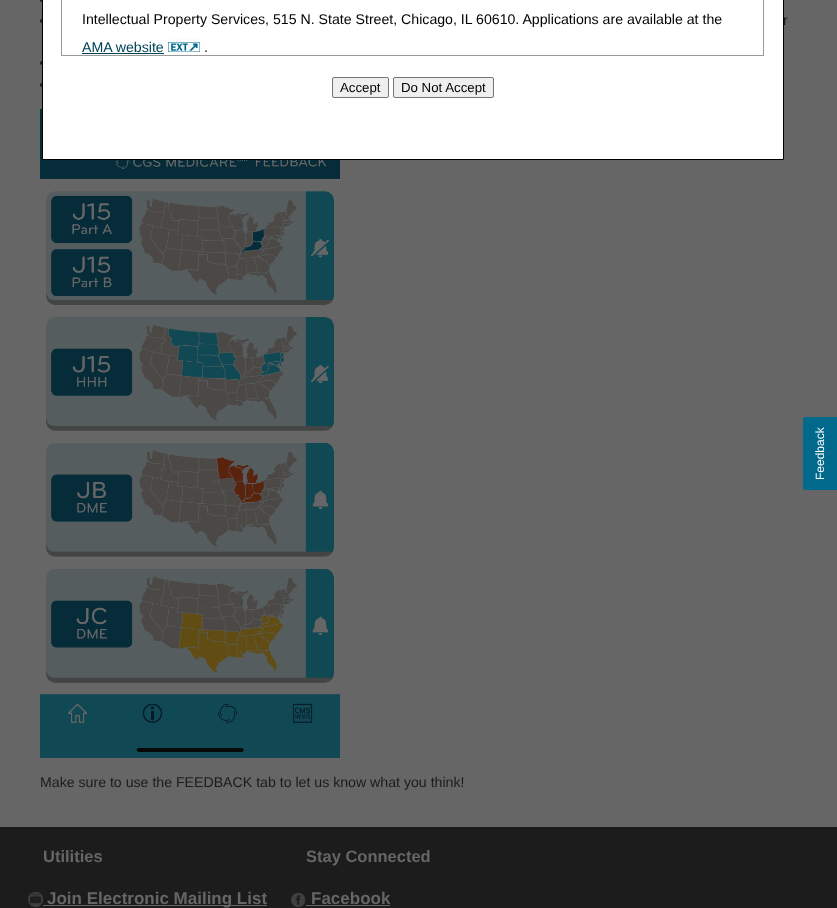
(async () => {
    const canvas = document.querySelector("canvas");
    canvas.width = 837;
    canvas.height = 908;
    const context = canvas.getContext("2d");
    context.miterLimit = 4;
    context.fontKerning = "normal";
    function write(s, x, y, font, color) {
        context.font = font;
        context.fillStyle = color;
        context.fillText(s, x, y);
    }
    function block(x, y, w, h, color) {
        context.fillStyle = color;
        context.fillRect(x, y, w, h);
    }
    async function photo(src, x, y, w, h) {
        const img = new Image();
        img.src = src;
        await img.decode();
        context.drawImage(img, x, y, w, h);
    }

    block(0, 0, 837, 908, "rgb(102, 102, 102)");
    context.fillStyle = "rgb(28, 28, 28)";
    context.beginPath();
    context.arc(42, 0, 2, 0, Math.PI * 2);
    context.fill();
    context.beginPath();
    context.arc(42, 21, 2, 0, Math.PI * 2);
    context.fill();
    write("r", 783, 25, "14.15px Liberation Sans", "rgb(28, 28, 28)");
    context.beginPath();
    context.arc(42, 63, 2, 0, Math.PI * 2);
    context.fill();
    context.beginPath();
    context.arc(42, 85, 2, 0, Math.PI * 2);
    context.fill();
    await photo("media/2.png", 40, 109, 300, 649);
    context.fillStyle = "rgb(255, 255, 255)";
    context.beginPath();
    context.rect(42.5, -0.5, 741, 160);
    context.fill();
    context.strokeStyle = "rgb(0, 0, 0)";
    context.stroke();
    context.strokeStyle = "rgb(153, 153, 153)";
    context.strokeRect(61.5, -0.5, 702, 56);
    write("Intellectual Property Services, 515 N. State Street, Chicago, IL 60610. Applications are available at the", 82, 24, "14.15px Liberation Sans", "rgb(0, 0, 0)");
    write("AMA website", 82, 52, "14.15px Liberation Sans", "rgb(0, 67, 87)");
    block(82, 53, 82, 1, "rgb(0, 67, 87)");
    await photo("media/1.png", 164, 38, 40, 14);
    write(".", 204, 52, "14.15px Liberation Sans", "rgb(0, 0, 0)");
    context.fillStyle = "rgb(239, 239, 239)";
    context.beginPath();
    context.roundRect(332.5, 77.5, 56, 20, 1.5);
    context.fill();
    context.strokeStyle = "rgb(118, 118, 118)";
    context.stroke();
    write("Accept", 340, 92, "13.25px Liberation Sans", "rgb(0, 0, 0)");
    context.fillStyle = "rgb(239, 239, 239)";
    context.beginPath();
    context.roundRect(393.5, 77.5, 100, 20, 1.5);
    context.fill();
    context.stroke();
    write("Do Not Accept", 401, 92, "13.25px Liberation Sans", "rgb(0, 0, 0)");
    write("Make sure to use the FEEDBACK tab to let us know what you think!", 40, 787, "14.15px Liberation Sans", "rgb(28, 28, 28)");
    context.fillStyle = "rgb(1, 105, 140)";
    context.beginPath();
    context.moveTo(837, 490);
    context.lineTo(805, 490);
    context.bezierCurveTo(804, 490, 803, 489, 803, 488);
    context.lineTo(803, 419);
    context.bezierCurveTo(803, 418, 804, 417, 805, 417);
    context.lineTo(837, 417);
    context.closePath();
    context.fill();
    context.font = "12px Liberation Sans";
    context.fillStyle = "rgb(255, 255, 255)";
    context.save();
    context.translate(824, 480);
    context.rotate(-90 * Math.PI / 180);
    context.fillText("Feedback", 0, 0);
    context.restore();
    block(0, 827, 837, 81, "rgb(28, 28, 28)");
    write("Utilities", 43, 862, "bold 16.5px Liberation Sans", "rgb(102, 102, 102)");
    await photo("media/3.png", 28, 892, 15, 15);
    block(43, 905, 224, 1, "rgb(102, 102, 102)");
    write("Join Electronic Mailing List", 47, 904, "bold 17px Liberation Sans", "rgb(102, 102, 102)");
    write("Stay Connected", 306, 862, "bold 16.5px Liberation Sans", "rgb(102, 102, 102)");
    await photo("media/4.png", 291, 892, 15, 15);
    write("Facebook", 311, 904, "bold 17px Liberation Sans", "rgb(102, 102, 102)");
    block(306, 905, 84, 1, "rgb(102, 102, 102)");
})();
